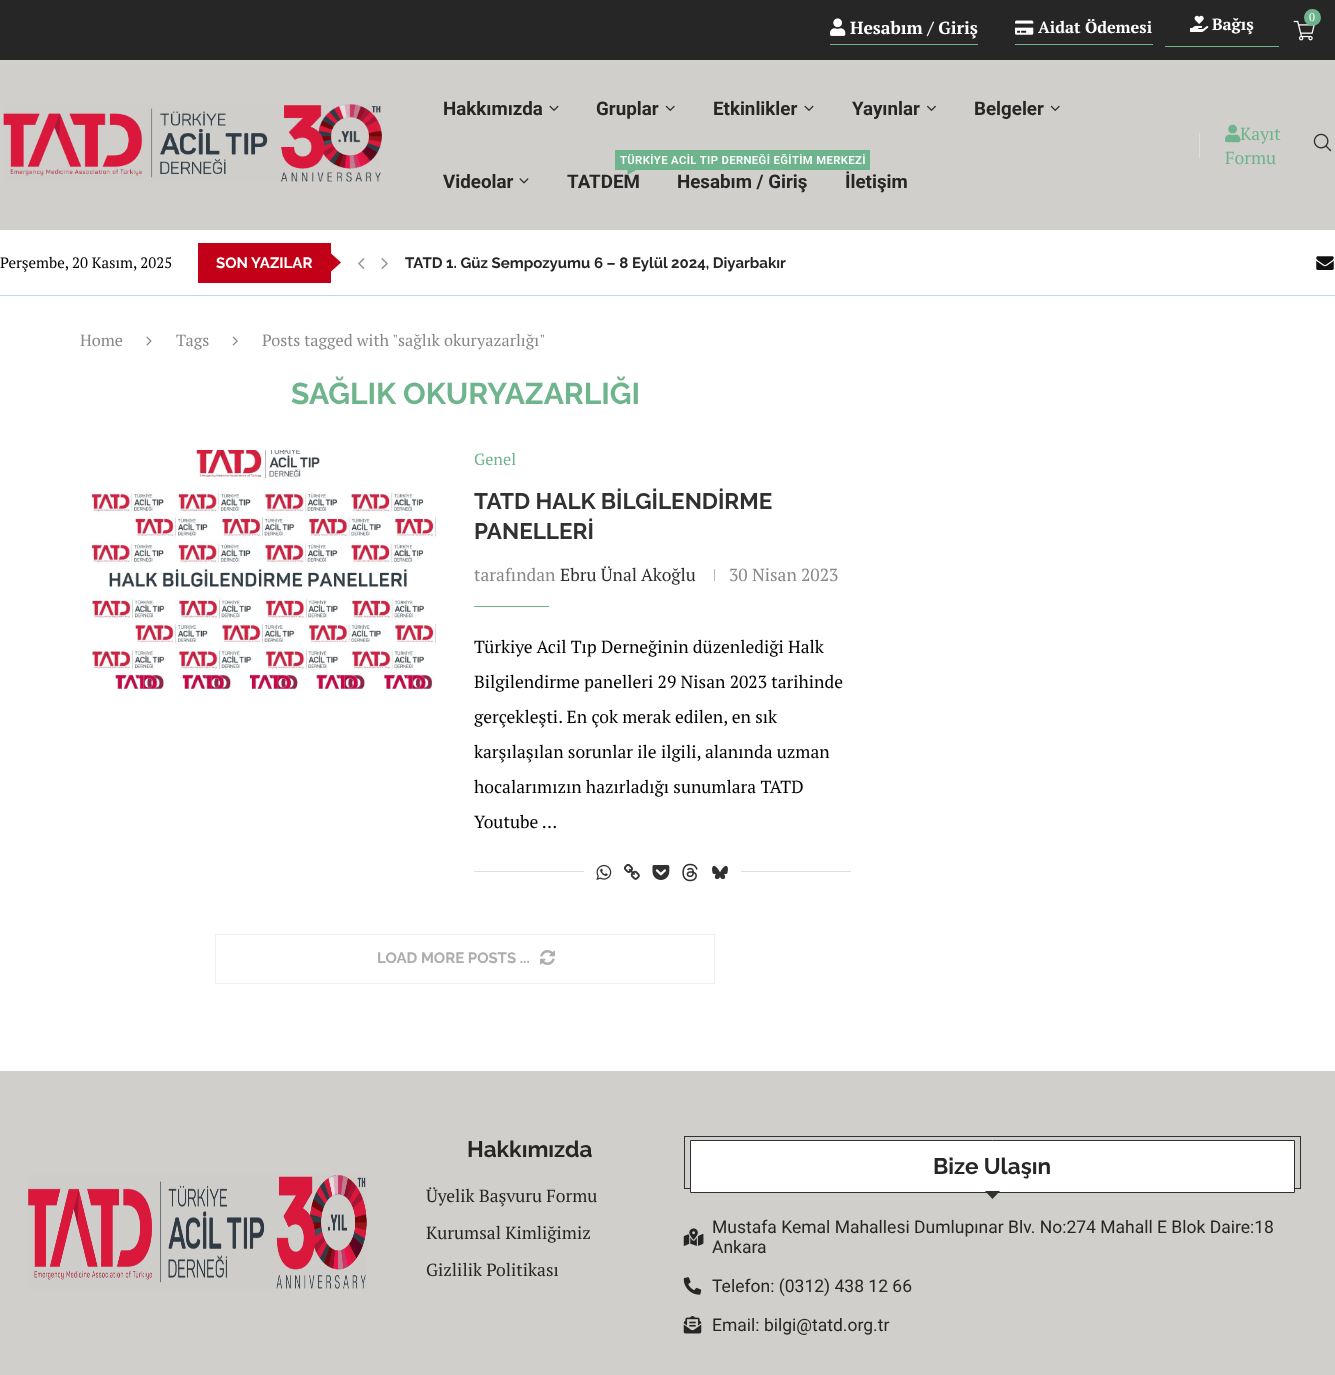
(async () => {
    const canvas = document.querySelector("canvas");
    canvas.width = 1335;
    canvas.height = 1375;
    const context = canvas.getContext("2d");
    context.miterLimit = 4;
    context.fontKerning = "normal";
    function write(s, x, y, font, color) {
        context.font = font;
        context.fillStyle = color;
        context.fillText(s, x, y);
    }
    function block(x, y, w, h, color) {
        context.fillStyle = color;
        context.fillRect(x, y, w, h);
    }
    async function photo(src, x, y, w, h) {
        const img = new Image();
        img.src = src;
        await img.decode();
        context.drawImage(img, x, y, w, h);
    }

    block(0, 0, 1335, 1375, "rgb(255, 255, 255)");
    block(0, 0, 1335, 60, "rgb(38, 38, 38)");
    block(830, 44, 148, 1, "rgb(110, 180, 140)");
    await photo("media/1.png", 830, 18, 16, 18);
    write("Hesabım / Giriş", 850, 34, "bold 17.5px PT Serif", "rgb(255, 255, 255)");
    block(1015, 44, 138, 1, "rgb(110, 180, 140)");
    await photo("media/2.png", 1015, 20, 19, 15);
    write("Aidat Ödemesi", 1038, 33, "bold 16.25px PT Serif", "rgb(255, 255, 255)");
    block(1165, 46, 114, 1, "rgb(110, 180, 140)");
    await photo("media/3.png", 1190, 15, 19, 17);
    write("Bağış", 1212, 30, "bold 16.25px PT Serif", "rgb(255, 255, 255)");
    await photo("media/4.png", 1293, 20, 22, 21);
    context.fillStyle = "rgb(110, 180, 140)";
    context.beginPath();
    context.arc(1312.5, 17.5, 8.5, 0, Math.PI * 2);
    context.fill();
    write("0", 1309, 21, "11.25px PT Serif", "rgb(255, 255, 255)");
    block(0, 60, 1335, 170, "rgb(208, 207, 203)");
    await photo("media/5.png", 3, 104, 379, 78);
    write("Hakkımızda", 443, 115, "bold 18.75px Roboto", "rgb(38, 38, 38)");
    await photo("media/6.png", 549, 105, 10, 6);
    write("Gruplar", 596, 115, "bold 18.75px Roboto", "rgb(38, 38, 38)");
    await photo("media/7.png", 665, 105, 10, 6);
    write("Etkinlikler", 713, 115, "bold 18.75px Roboto", "rgb(38, 38, 38)");
    await photo("media/6.png", 804, 105, 10, 6);
    write("Yayınlar", 852, 115, "bold 18.75px Roboto", "rgb(38, 38, 38)");
    await photo("media/8.png", 927, 105, 9, 6);
    write("Belgeler", 974, 115, "bold 18.75px Roboto", "rgb(38, 38, 38)");
    await photo("media/7.png", 1050, 105, 10, 6);
    write("Videolar", 443, 188, "bold 18.75px Roboto", "rgb(38, 38, 38)");
    await photo("media/9.png", 519, 178, 10, 6);
    block(615, 150, 255, 20, "rgb(110, 180, 140)");
    context.letterSpacing = "0.4px";
    write("TÜRKİYE ACİL TIP DERNEĞİ EĞİTİM MERKEZİ", 620, 164, "600 11.25px Roboto", "rgb(255, 255, 255)");
    context.letterSpacing = "0px";
    write("TATDEM", 567, 188, "bold 18.75px Roboto", "rgb(38, 38, 38)");
    context.fillStyle = "rgb(110, 180, 140)";
    context.beginPath();
    context.moveTo(627.5, 170);
    context.lineTo(636, 170);
    context.lineTo(627.5, 175);
    context.closePath();
    context.fill();
    write("İletişim", 845, 188, "bold 18.75px Roboto", "rgb(38, 38, 38)");
    write("Hesabım / Giriş", 677, 188, "bold 18.75px Roboto", "rgb(38, 38, 38)");
    block(1199, 133, 1, 25, "rgb(222, 222, 222)");
    await photo("media/10.png", 1225, 124, 16, 19);
    write("Kayıt", 1240, 140, "17.5px PT Serif", "rgb(110, 180, 140)");
    write("Formu", 1225, 164, "17.5px PT Serif", "rgb(110, 180, 140)");
    await photo("media/11.png", 1313, 133, 19, 19);
    block(0, 295, 1335, 1, "rgb(186, 217, 248)");
    write("Perşembe, 20 Kasım, 2025", 0, 268, "15px PT Serif", "rgb(0, 0, 0)");
    block(198, 243, 133, 40, "rgb(194, 0, 23)");
    write("SON YAZILAR", 216, 268, "bold 15px Raleway", "rgb(255, 255, 255)");
    context.fillStyle = "rgb(194, 0, 23)";
    context.beginPath();
    context.moveTo(330, 272.5);
    context.lineTo(330, 252.5);
    context.lineTo(341, 262.5);
    context.closePath();
    context.fill();
    await photo("media/12.png", 358, 258, 7, 12);
    await photo("media/13.png", 381, 258, 7, 12);
    write("TATD 1. Güz Sempozyumu 6 – 8 Eylül 2024, Diyarbakır", 405, 268, "bold 15px Raleway", "rgb(38, 38, 38)");
    await photo("media/14.png", 1316, 256, 18, 14);
    write("Home", 80, 346, "16.25px PT Serif", "rgb(136, 136, 136)");
    await photo("media/15.png", 146, 336, 6, 10);
    write("Tags", 176, 346, "16.25px PT Serif", "rgb(136, 136, 136)");
    await photo("media/16.png", 232, 336, 6, 10);
    write("Posts tagged with \"sağlık okuryazarlığı\"", 262, 346, "16.25px PT Serif", "rgb(136, 136, 136)");
    write("SAĞLIK OKURYAZARLIĞI", 291, 404, "bold 30px Raleway", "rgb(110, 180, 140)");
    await photo("media/17.png", 80, 450, 356, 239);
    write("Genel", 474, 465, "16.25px PT Serif", "rgb(110, 180, 140)");
    write("TATD HALK BİLGİLENDİRME", 474, 509, "bold 22.5px Raleway", "rgb(49, 49, 49)");
    write("PANELLERİ", 474, 539, "bold 22.5px Raleway", "rgb(49, 49, 49)");
    write("tarafından", 474, 581, "17.5px PT Serif", "rgb(136, 136, 136)");
    write("Ebru Ünal Akoğlu", 560, 581, "17.5px PT Serif", "rgb(49, 49, 49)");
    block(714, 569, 1, 12, "rgb(184, 184, 184)");
    write("30 Nisan 2023", 729, 581, "17.5px PT Serif", "rgb(136, 136, 136)");
    block(474, 606, 75, 1, "rgb(110, 180, 140)");
    write("Türkiye Acil Tıp Derneğinin düzenlediği Halk", 474, 653, "17.5px PT Serif", "rgb(0, 0, 0)");
    write("Bilgilendirme panelleri 29 Nisan 2023 tarihinde", 474, 688, "17.5px PT Serif", "rgb(0, 0, 0)");
    write("gerçekleşti. En çok merak edilen, en sık", 474, 723, "17.5px PT Serif", "rgb(0, 0, 0)");
    write("karşılaşılan sorunlar ile ilgili, alanında uzman", 474, 758, "17.5px PT Serif", "rgb(0, 0, 0)");
    write("hocalarımızın hazırladığı sunumlara TATD", 474, 793, "17.5px PT Serif", "rgb(0, 0, 0)");
    write("Youtube …", 474, 828, "17.5px PT Serif", "rgb(0, 0, 0)");
    block(474, 871, 377, 1, "rgb(222, 222, 222)");
    block(584, 871, 157, 1, "rgb(255, 255, 255)");
    await photo("media/18.png", 596, 864, 16, 16);
    await photo("media/19.png", 623, 863, 17, 17);
    await photo("media/20.png", 652, 865, 18, 15);
    await photo("media/21.png", 682, 863, 16, 19);
    await photo("media/22.png", 712, 865, 16, 15);
    context.strokeStyle = "rgb(240, 240, 240)";
    context.strokeRect(215.5, 934.5, 499, 49);
    write("LOAD MORE POSTS ...", 377, 963, "bold 15px Raleway", "rgb(173, 173, 173)");
    await photo("media/23.png", 540, 950, 15, 15);
    block(0, 1071, 1335, 304, "rgb(208, 207, 203)");
    await photo("media/24.png", 28, 1175, 339, 114);
    write("Hakkımızda", 467, 1157, "bold 22.5px Raleway", "rgb(38, 38, 38)");
    write("Üyelik Başvuru Formu", 426, 1202, "17.5px PT Serif", "rgb(38, 38, 38)");
    write("Kurumsal Kimliğimiz", 426, 1239, "17.5px PT Serif", "rgb(38, 38, 38)");
    write("Gizlilik Politikası", 426, 1276, "17.5px PT Serif", "rgb(38, 38, 38)");
    context.strokeStyle = "rgb(49, 49, 49)";
    context.strokeRect(684.5, 1136.5, 616, 52);
    context.fillStyle = "rgb(255, 255, 255)";
    context.beginPath();
    context.rect(690.5, 1140.5, 604, 52);
    context.fill();
    context.stroke();
    write("Bize Ulaşın", 933, 1174, "bold 22.5px Raleway", "rgb(38, 38, 38)");
    context.fillStyle = "rgb(49, 49, 49)";
    context.beginPath();
    context.moveTo(985, 1191);
    context.lineTo(1000, 1191);
    context.lineTo(992.5, 1199);
    context.closePath();
    context.fill();
    await photo("media/25.png", 683, 1228, 21, 18);
    write("Mustafa Kemal Mahallesi Dumlupınar Blv. No:274 Mahall E Blok Daire:18", 712, 1233, "17.5px Roboto", "rgb(38, 38, 38)");
    write("Ankara", 712, 1253, "17.5px Roboto", "rgb(38, 38, 38)");
    await photo("media/26.png", 683, 1277, 19, 18);
    write("Telefon: (0312) 438 12 66", 712, 1292, "17.5px Roboto", "rgb(38, 38, 38)");
    await photo("media/27.png", 683, 1316, 19, 18);
    write("Email: bilgi@tatd.org.tr", 712, 1331, "17.5px Roboto", "rgb(38, 38, 38)");
})();
